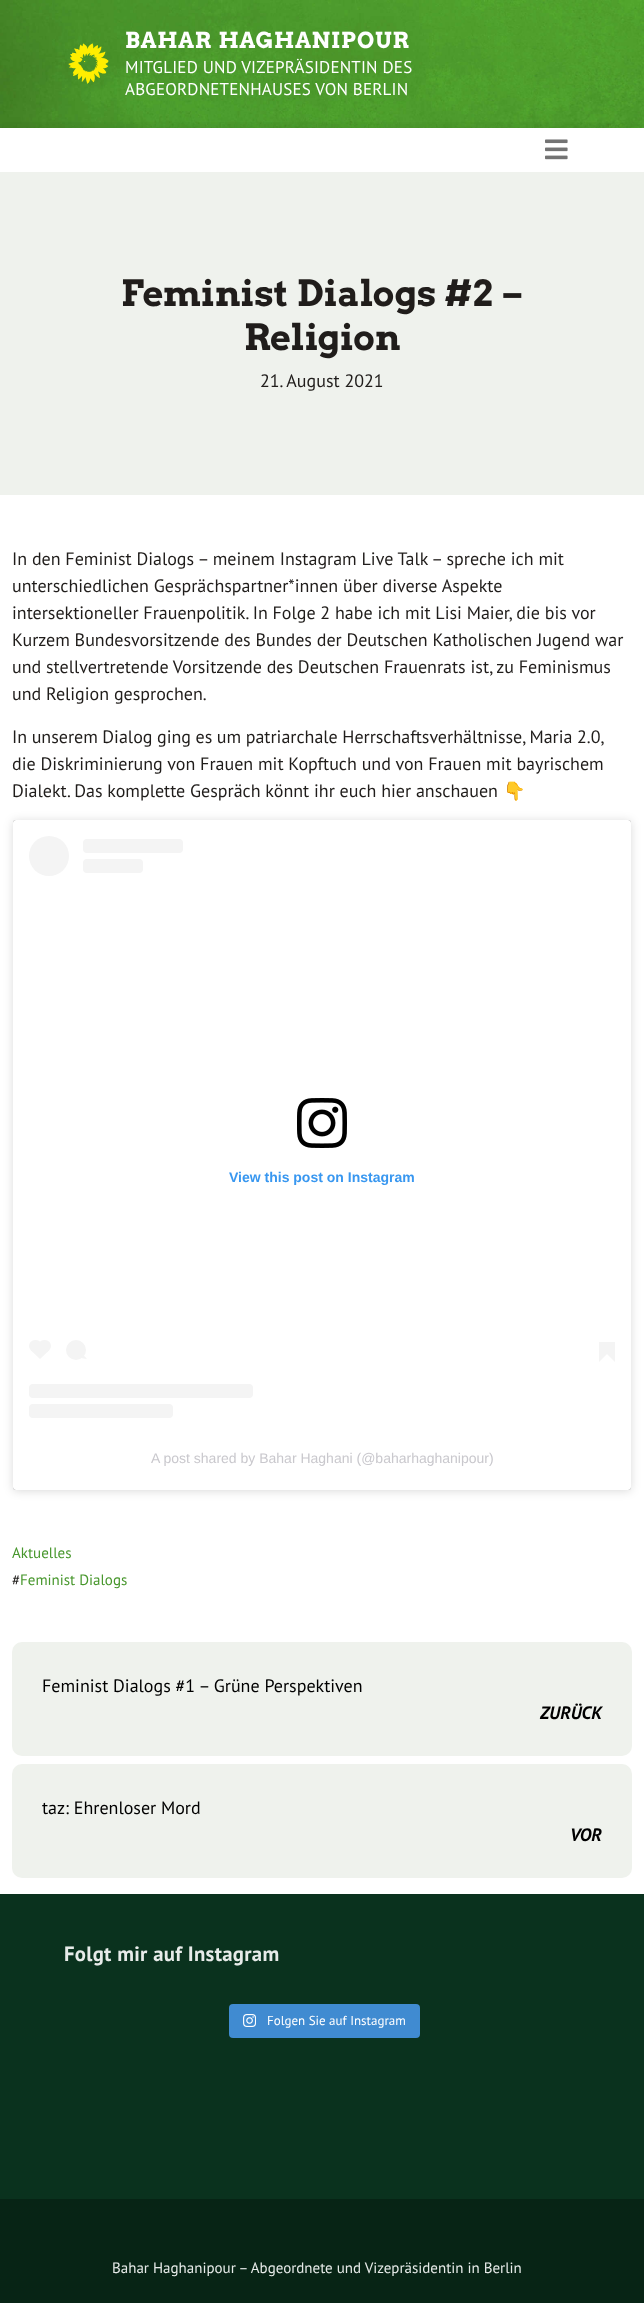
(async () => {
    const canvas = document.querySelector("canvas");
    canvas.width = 644;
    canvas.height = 2303;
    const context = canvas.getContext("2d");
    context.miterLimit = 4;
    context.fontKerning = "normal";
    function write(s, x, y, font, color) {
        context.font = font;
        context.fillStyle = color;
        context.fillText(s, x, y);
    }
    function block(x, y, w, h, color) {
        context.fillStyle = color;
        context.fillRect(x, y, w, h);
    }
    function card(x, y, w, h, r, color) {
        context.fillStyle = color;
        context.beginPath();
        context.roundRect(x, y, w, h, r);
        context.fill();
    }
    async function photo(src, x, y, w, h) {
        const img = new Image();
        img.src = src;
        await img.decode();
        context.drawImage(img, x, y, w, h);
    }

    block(0, 0, 644, 2303, "rgb(255, 255, 255)");
    await photo("media/1.png", 0, 0, 644, 128);
    await photo("media/2.png", 68, 43, 41, 41);
    context.letterSpacing = "1px";
    write("BAHAR HAGHANIPOUR", 125, 48, "22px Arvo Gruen", "rgb(255, 255, 255)");
    context.letterSpacing = "0.2px";
    write("MITGLIED UND VIZEPRÄSIDENTIN DES", 125, 73, "17px PT Sans", "rgb(255, 255, 255)");
    write("ABGEORDNETENHAUSES VON BERLIN", 125, 95, "17px PT Sans", "rgb(255, 255, 255)");
    context.save();
    context.beginPath();
    context.rect(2, 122, 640, 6);
    context.clip();
    context.fillStyle = "rgba(0, 0, 0, 0.08)";
    context.filter = "blur(10px)";
    context.beginPath();
    context.rect(0, 129, 644, 44);
    context.fill();
    context.filter = "none";
    context.restore();
    await photo("media/3.png", 545, 139, 23, 21);
    block(0, 172, 644, 323, "rgb(239, 242, 237)");
    context.letterSpacing = "0px";
    write("Feminist Dialogs #2 –", 121, 306, "36px Arvo Gruen", "rgb(32, 29, 27)");
    write("Religion", 244, 350, "36px Arvo Gruen", "rgb(32, 29, 27)");
    write("21. August 2021", 260, 387, "18px PT Sans", "rgb(32, 29, 27)");
    write("In den Feminist Dialogs – meinem Instagram Live Talk – spreche ich mit", 12, 565, "18px PT Sans", "rgb(32, 29, 27)");
    write("unterschiedlichen Gesprächspartner*innen über diverse Aspekte", 12, 592, "18px PT Sans", "rgb(32, 29, 27)");
    write("intersektioneller Frauenpolitik. In Folge 2 habe ich mit Lisi Maier, die bis vor", 12, 619, "18px PT Sans", "rgb(32, 29, 27)");
    write("Kurzem Bundesvorsitzende des Bundes der Deutschen Katholischen Jugend war", 12, 646, "18px PT Sans", "rgb(32, 29, 27)");
    write("und stellvertretende Vorsitzende des Deutschen Frauenrats ist, zu Feminismus", 12, 673, "18px PT Sans", "rgb(32, 29, 27)");
    write("und Religion gesprochen.", 12, 700, "18px PT Sans", "rgb(32, 29, 27)");
    context.wordSpacing = "-0.25px";
    write("In unserem Dialog ging es um patriarchale Herrschaftsverhältnisse, Maria 2.0,", 12, 743, "18px PT Sans", "rgb(32, 29, 27)");
    context.wordSpacing = "0px";
    write("die Diskriminierung von Frauen mit Kopftuch und von Frauen mit bayrischem", 12, 770, "18px PT Sans", "rgb(32, 29, 27)");
    write("Dialekt. Das komplette Gespräch könnt ihr euch hier anschauen", 12, 797, "18px PT Sans", "rgb(32, 29, 27)");
    write("👇", 503, 797, "18px Noto Color Emoji", "rgb(32, 29, 27)");
    context.fillStyle = "rgba(0, 0, 0, 0.15)";
    context.filter = "blur(5px)";
    context.beginPath();
    context.roundRect(13, 821, 618, 670, 3);
    context.fill();
    context.filter = "none";
    context.fillStyle = "rgba(0, 0, 0, 0.5)";
    context.filter = "blur(0.5px)";
    context.beginPath();
    context.roundRect(13, 820, 618, 670, 3);
    context.fill();
    context.filter = "none";
    card(13, 820, 618, 670, 3, "rgb(255, 255, 255)");
    context.fillStyle = "rgb(244, 244, 244)";
    context.beginPath();
    context.arc(49, 856, 20, 0, Math.PI * 2);
    context.fill();
    card(83, 839, 100, 14, 4, "rgb(244, 244, 244)");
    card(83, 859, 60, 14, 4, "rgb(244, 244, 244)");
    await photo("media/4.png", 297, 1098, 50, 50);
    write("View this post on Instagram", 229, 1182, "bold 14px Liberation Sans", "rgb(56, 151, 240)");
    card(29, 1340, 13, 12, 6, "rgb(244, 244, 244)");
    context.beginPath();
    context.moveTo(31, 1350.5);
    context.lineTo(40, 1341.5);
    context.lineTo(49, 1350.5);
    context.lineTo(40, 1359);
    context.closePath();
    context.fill();
    card(38, 1340, 13, 12, 6, "rgb(244, 244, 244)");
    context.beginPath();
    context.arc(76, 1350, 10, 0, Math.PI * 2);
    context.fill();
    context.beginPath();
    context.moveTo(81, 1358);
    context.lineTo(83, 1354.5);
    context.lineTo(87, 1359);
    context.closePath();
    context.fill();
    block(599, 1342, 16, 12, "rgb(244, 244, 244)");
    context.beginPath();
    context.moveTo(599, 1354);
    context.lineTo(607, 1354);
    context.lineTo(599, 1362);
    context.closePath();
    context.fill();
    context.beginPath();
    context.moveTo(607, 1354);
    context.lineTo(615, 1354);
    context.lineTo(615, 1362);
    context.closePath();
    context.fill();
    card(29, 1384, 224, 14, 4, "rgb(244, 244, 244)");
    card(29, 1404, 144, 14, 4, "rgb(244, 244, 244)");
    write("A post shared by Bahar Haghani (@baharhaghanipour)", 151, 1463, "14px Liberation Sans", "rgb(201, 200, 205)");
    write("Aktuelles", 12, 1558, "15px PT Sans", "rgb(70, 150, 43)");
    write("#", 12, 1585, "15px PT Sans", "rgb(32, 29, 27)");
    write("Feminist Dialogs", 20, 1585, "15px PT Sans", "rgb(70, 150, 43)");
    card(12, 1642, 620, 114, 10, "rgb(239, 242, 237)");
    write("Feminist Dialogs #1 – Grüne Perspektiven", 42, 1692, "18px PT Sans", "rgb(0, 0, 0)");
    write("ZURÜCK", 540, 1719, "italic bold 18px PT Sans", "rgb(0, 0, 0)");
    card(12, 1764, 620, 114, 10, "rgb(239, 242, 237)");
    write("taz: Ehrenloser Mord", 42, 1814, "18px PT Sans", "rgb(0, 0, 0)");
    write("VOR", 570, 1841, "italic bold 18px PT Sans", "rgb(0, 0, 0)");
    block(0, 1894, 644, 305, "rgb(10, 50, 30)");
    context.letterSpacing = "0.3px";
    write("Folgt mir auf Instagram", 64, 1961, "bold 20.75px PT Sans", "rgb(231, 235, 233)");
    card(229, 2004, 191, 34, 4, "rgb(64, 139, 209)");
    await photo("media/5.png", 243, 2014, 13, 13);
    context.letterSpacing = "0px";
    write("Folgen Sie auf Instagram", 267, 2025, "13px PT Sans", "rgb(255, 255, 255)");
    block(0, 2199, 644, 104, "rgb(7, 36, 21)");
    write("Bahar Haghanipour – Abgeordnete und Vizepräsidentin in Berlin", 112, 2273, "15px PT Sans", "rgb(231, 235, 233)");
})();
